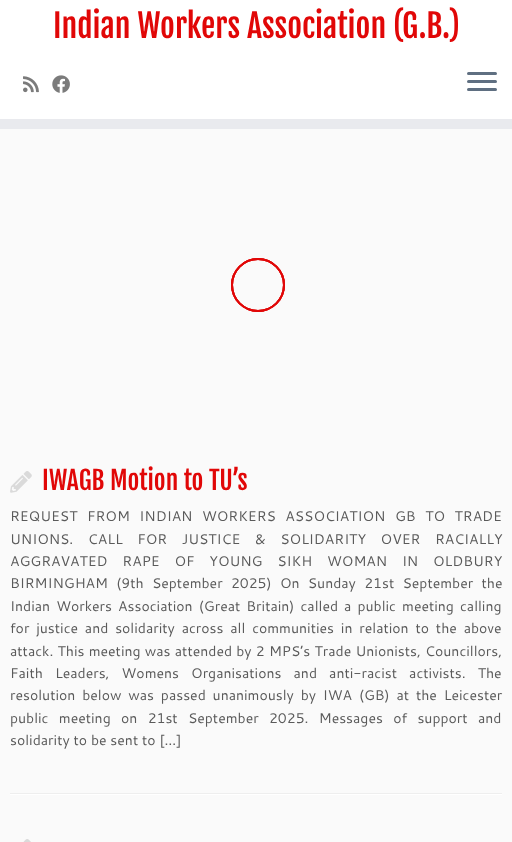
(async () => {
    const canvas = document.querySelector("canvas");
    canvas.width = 512;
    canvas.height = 842;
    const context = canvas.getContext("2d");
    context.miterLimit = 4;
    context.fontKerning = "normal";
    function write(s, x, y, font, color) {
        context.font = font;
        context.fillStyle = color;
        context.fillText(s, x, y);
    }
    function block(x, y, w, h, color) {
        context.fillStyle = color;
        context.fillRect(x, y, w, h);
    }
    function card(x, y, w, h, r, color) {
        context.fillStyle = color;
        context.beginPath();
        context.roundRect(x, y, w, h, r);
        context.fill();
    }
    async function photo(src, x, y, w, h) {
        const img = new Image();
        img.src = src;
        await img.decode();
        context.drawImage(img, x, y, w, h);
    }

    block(0, 0, 512, 842, "rgb(250, 250, 250)");
    block(0, 0, 512, 119, "rgb(255, 255, 255)");
    block(0, 119, 512, 10, "rgb(233, 234, 238)");
    write("Indian Workers Association (G.B.)", 53, 38, "32px Fjalla One", "rgb(225, 7, 7)");
    await photo("media/1.png", 23, 76, 16, 17);
    await photo("media/2.png", 52, 75, 18, 18);
    card(467, 72, 30, 3, 1.5, "rgb(95, 111, 129)");
    card(467, 80, 30, 3, 1.5, "rgb(95, 111, 129)");
    card(467, 88, 30, 3, 1.5, "rgb(95, 111, 129)");
    context.beginPath();
    context.arc(258, 285, 26, 0, Math.PI * 2);
    context.strokeStyle = "rgb(225, 7, 7)";
    context.lineWidth = 2;
    context.stroke();
    context.beginPath();
    context.arc(258, 285, 26, 0, Math.PI * 2);
    context.stroke();
    context.beginPath();
    context.arc(258, 285, 26, 0, Math.PI * 2);
    context.stroke();
    await photo("media/3.png", 10, 471, 22, 22);
    write("IWAGB Motion to TU’s", 42, 490, "25.5px Fjalla One", "rgb(225, 7, 7)");
    context.wordSpacing = "5.75px";
    write("REQUEST FROM INDIAN WORKERS ASSOCIATION GB TO TRADE", 10, 521, "14px Cantarell", "rgb(90, 90, 90)");
    context.wordSpacing = "10.75px";
    write("UNIONS. CALL FOR JUSTICE & SOLIDARITY OVER RACIALLY", 10, 544, "14px Cantarell", "rgb(90, 90, 90)");
    context.wordSpacing = "11px";
    write("AGGRAVATED RAPE OF YOUNG SIKH WOMAN IN OLDBURY", 10, 566, "14px Cantarell", "rgb(90, 90, 90)");
    context.wordSpacing = "4.5px";
    write("BIRMINGHAM (9th September 2025) On Sunday 21st September the", 10, 588, "14px Cantarell", "rgb(90, 90, 90)");
    context.wordSpacing = "2.25px";
    write("Indian Workers Association (Great Britain) called a public meeting calling", 10, 611, "14px Cantarell", "rgb(90, 90, 90)");
    context.wordSpacing = "3px";
    write("for justice and solidarity across all communities in relation to the above", 10, 633, "14px Cantarell", "rgb(90, 90, 90)");
    context.wordSpacing = "0.4px";
    write("attack. This meeting was attended by 2 MPS’s Trade Unionists, Councillors,", 10, 656, "14px Cantarell", "rgb(90, 90, 90)");
    context.wordSpacing = "8.25px";
    write("Faith Leaders, Womens Organisations and anti-racist activists. The", 10, 678, "14px Cantarell", "rgb(90, 90, 90)");
    context.wordSpacing = "3px";
    write("resolution below was passed unanimously by IWA (GB) at the Leicester", 10, 700, "14px Cantarell", "rgb(90, 90, 90)");
    context.wordSpacing = "6.5px";
    write("public meeting on 21st September 2025. Messages of support and", 10, 723, "14px Cantarell", "rgb(90, 90, 90)");
    context.wordSpacing = "0px";
    write("solidarity to be sent to […]", 10, 745, "14px Cantarell", "rgb(90, 90, 90)");
    block(10, 793, 492, 1, "rgb(238, 238, 238)");
    block(10, 794, 492, 1, "rgb(255, 255, 255)");
    await photo("media/4.png", 23, 839, 8, 3);
})();
